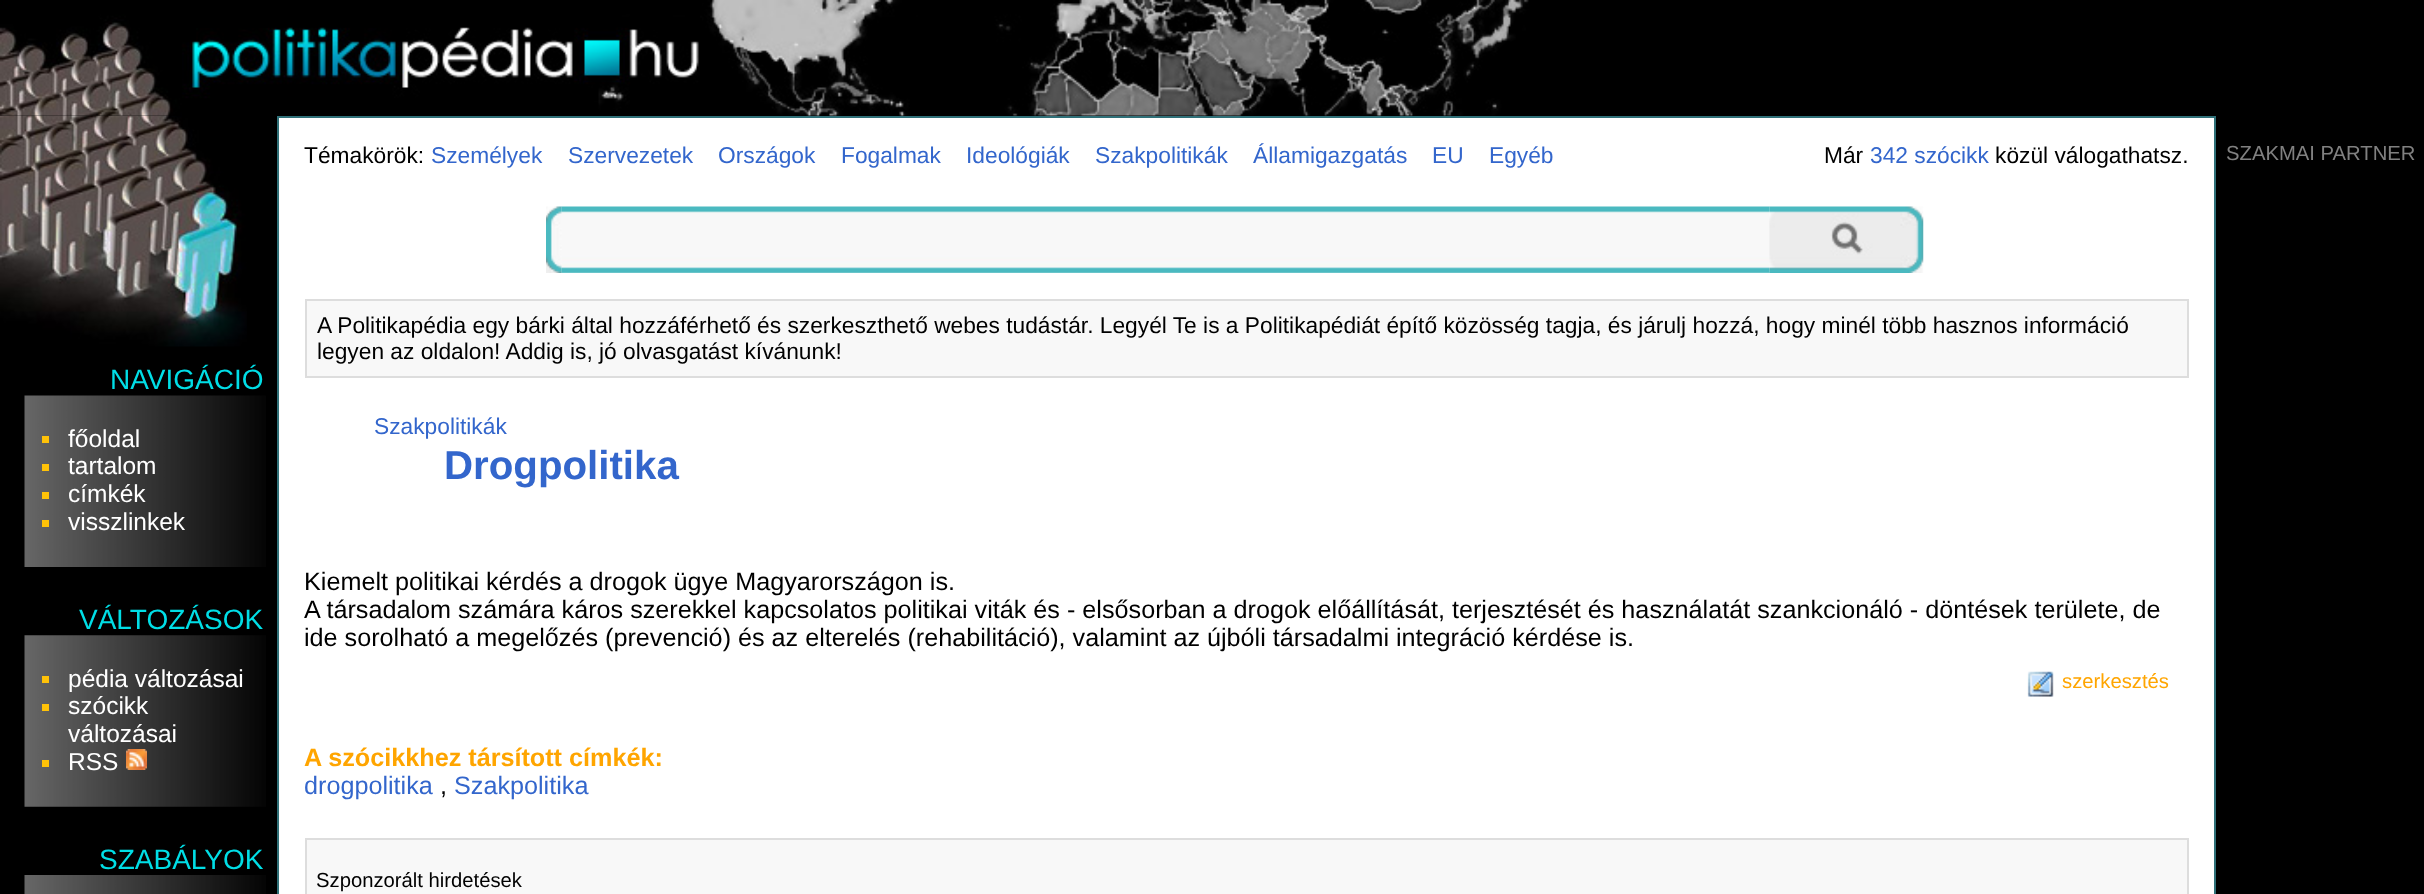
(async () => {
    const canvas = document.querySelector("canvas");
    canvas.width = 2424;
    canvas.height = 894;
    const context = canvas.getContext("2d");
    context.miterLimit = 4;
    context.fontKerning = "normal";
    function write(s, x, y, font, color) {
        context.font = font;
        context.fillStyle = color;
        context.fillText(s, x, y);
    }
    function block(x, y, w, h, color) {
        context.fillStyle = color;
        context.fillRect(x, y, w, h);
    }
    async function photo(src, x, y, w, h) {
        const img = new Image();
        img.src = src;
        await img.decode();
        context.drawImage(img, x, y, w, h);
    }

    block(0, 0, 2424, 894, "rgb(0, 0, 0)");
    await photo("media/6.png", 0, 115, 247, 232);
    await photo("media/1.png", 0, 0, 1529, 116);
    context.fillStyle = "rgb(255, 255, 255)";
    context.beginPath();
    context.rect(278, 117, 1937, 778);
    context.fill();
    context.strokeStyle = "rgb(47, 112, 120)";
    context.lineWidth = 2;
    context.stroke();
    write("Témakörök:", 304, 163, "22.75px Liberation Sans", "rgb(0, 0, 0)");
    write("Személyek", 431, 163, "22.75px Liberation Sans", "rgb(51, 102, 204)");
    write("Szervezetek", 568, 163, "22.75px Liberation Sans", "rgb(51, 102, 204)");
    write("Országok", 718, 163, "22.75px Liberation Sans", "rgb(51, 102, 204)");
    write("Fogalmak", 841, 163, "22.75px Liberation Sans", "rgb(51, 102, 204)");
    write("Ideológiák", 966, 163, "22.75px Liberation Sans", "rgb(51, 102, 204)");
    write("Szakpolitikák", 1095, 163, "22.75px Liberation Sans", "rgb(51, 102, 204)");
    write("Államigazgatás", 1253, 163, "22.75px Liberation Sans", "rgb(51, 102, 204)");
    write("EU", 1432, 163, "22.75px Liberation Sans", "rgb(51, 102, 204)");
    write("Egyéb", 1489, 163, "22.75px Liberation Sans", "rgb(51, 102, 204)");
    write("Már", 1824, 163, "22.75px Liberation Sans", "rgb(0, 0, 0)");
    write("342 szócikk", 1870, 163, "22.75px Liberation Sans", "rgb(51, 102, 204)");
    write("közül válogathatsz.", 1995, 163, "22.75px Liberation Sans", "rgb(0, 0, 0)");
    await photo("media/2.png", 546, 206, 16, 67);
    await photo("media/3.png", 561, 206, 1209, 67);
    await photo("media/4.png", 1769, 206, 155, 67);
    context.fillStyle = "rgb(248, 248, 248)";
    context.beginPath();
    context.rect(306, 300, 1882, 77);
    context.fill();
    context.strokeStyle = "rgb(221, 221, 221)";
    context.stroke();
    write("A Politikapédia egy bárki által hozzáférhető és szerkeszthető webes tudástár. Legyél Te is a Politikapédiát építő közösség tagja, és járulj hozzá, hogy minél több hasznos információ", 317, 333, "22.75px Liberation Sans", "rgb(0, 0, 0)");
    write("legyen az oldalon! Addig is, jó olvasgatást kívánunk!", 317, 359, "22.75px Liberation Sans", "rgb(0, 0, 0)");
    write("Szakpolitikák", 374, 434, "22.75px Liberation Sans", "rgb(51, 102, 204)");
    write("Drogpolitika", 444, 479, "bold 40.25px Liberation Sans", "rgb(51, 102, 204)");
    write("Kiemelt politikai kérdés a drogok ügye Magyarországon is.", 304, 590, "25.2px Liberation Sans", "rgb(0, 0, 0)");
    write("A társadalom számára káros szerekkel kapcsolatos politikai viták és - elsősorban a drogok előállítását, terjesztését és használatát szankcionáló - döntések területe, de", 304, 618, "25.2px Liberation Sans", "rgb(0, 0, 0)");
    write("ide sorolható a megelőzés (prevenció) és az elterelés (rehabilitáció), valamint az újbóli társadalmi integráció kérdése is.", 304, 646, "25.2px Liberation Sans", "rgb(0, 0, 0)");
    await photo("media/5.png", 2027, 671, 27, 26);
    write("szerkesztés", 2062, 688, "20.25px Liberation Sans", "rgb(255, 165, 0)");
    write("A szócikkhez társított címkék:", 304, 766, "bold 25.2px Liberation Sans", "rgb(255, 165, 0)");
    write("drogpolitika", 304, 794, "25.2px Liberation Sans", "rgb(51, 102, 204)");
    write(",", 440, 794, "25.2px Liberation Sans", "rgb(0, 0, 0)");
    write("Szakpolitika", 454, 794, "25.2px Liberation Sans", "rgb(51, 102, 204)");
    context.fillStyle = "rgb(248, 248, 248)";
    context.beginPath();
    context.rect(306, 839, 1882, 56);
    context.fill();
    context.stroke();
    write("Szponzorált hirdetések", 316, 887, "20.25px Liberation Sans", "rgb(0, 0, 0)");
    write("SZAKMAI PARTNER", 2226, 160, "20.25px Liberation Sans", "rgb(128, 128, 128)");
    write("NAVIGÁCIÓ", 110, 389, "28px Liberation Sans", "rgb(0, 222, 230)");
    await photo("media/7.png", 24, 395, 242, 172);
    block(42, 436, 7, 7, "rgb(255, 194, 8)");
    write("főoldal", 68, 447, "24.5px Liberation Sans", "rgb(255, 255, 255)");
    block(42, 464, 7, 7, "rgb(255, 194, 8)");
    write("tartalom", 68, 474, "24.5px Liberation Sans", "rgb(255, 255, 255)");
    block(42, 492, 7, 7, "rgb(255, 194, 8)");
    write("címkék", 68, 502, "24.5px Liberation Sans", "rgb(255, 255, 255)");
    block(42, 520, 7, 7, "rgb(255, 194, 8)");
    write("visszlinkek", 68, 530, "24.5px Liberation Sans", "rgb(255, 255, 255)");
    write("VÁLTOZÁSOK", 79, 629, "28px Liberation Sans", "rgb(0, 222, 230)");
    await photo("media/8.png", 24, 635, 242, 172);
    block(42, 676, 7, 7, "rgb(255, 194, 8)");
    write("pédia változásai", 68, 687, "24.5px Liberation Sans", "rgb(255, 255, 255)");
    block(42, 704, 7, 7, "rgb(255, 194, 8)");
    write("szócikk", 68, 714, "24.5px Liberation Sans", "rgb(255, 255, 255)");
    write("változásai", 68, 742, "24.5px Liberation Sans", "rgb(255, 255, 255)");
    block(42, 760, 7, 7, "rgb(255, 194, 8)");
    write("RSS", 68, 770, "24.5px Liberation Sans", "rgb(255, 255, 255)");
    await photo("media/9.png", 126, 749, 21, 21);
    write("SZABÁLYOK", 99, 869, "28px Liberation Sans", "rgb(0, 222, 230)");
    await photo("media/10.png", 24, 875, 242, 19);
})();
